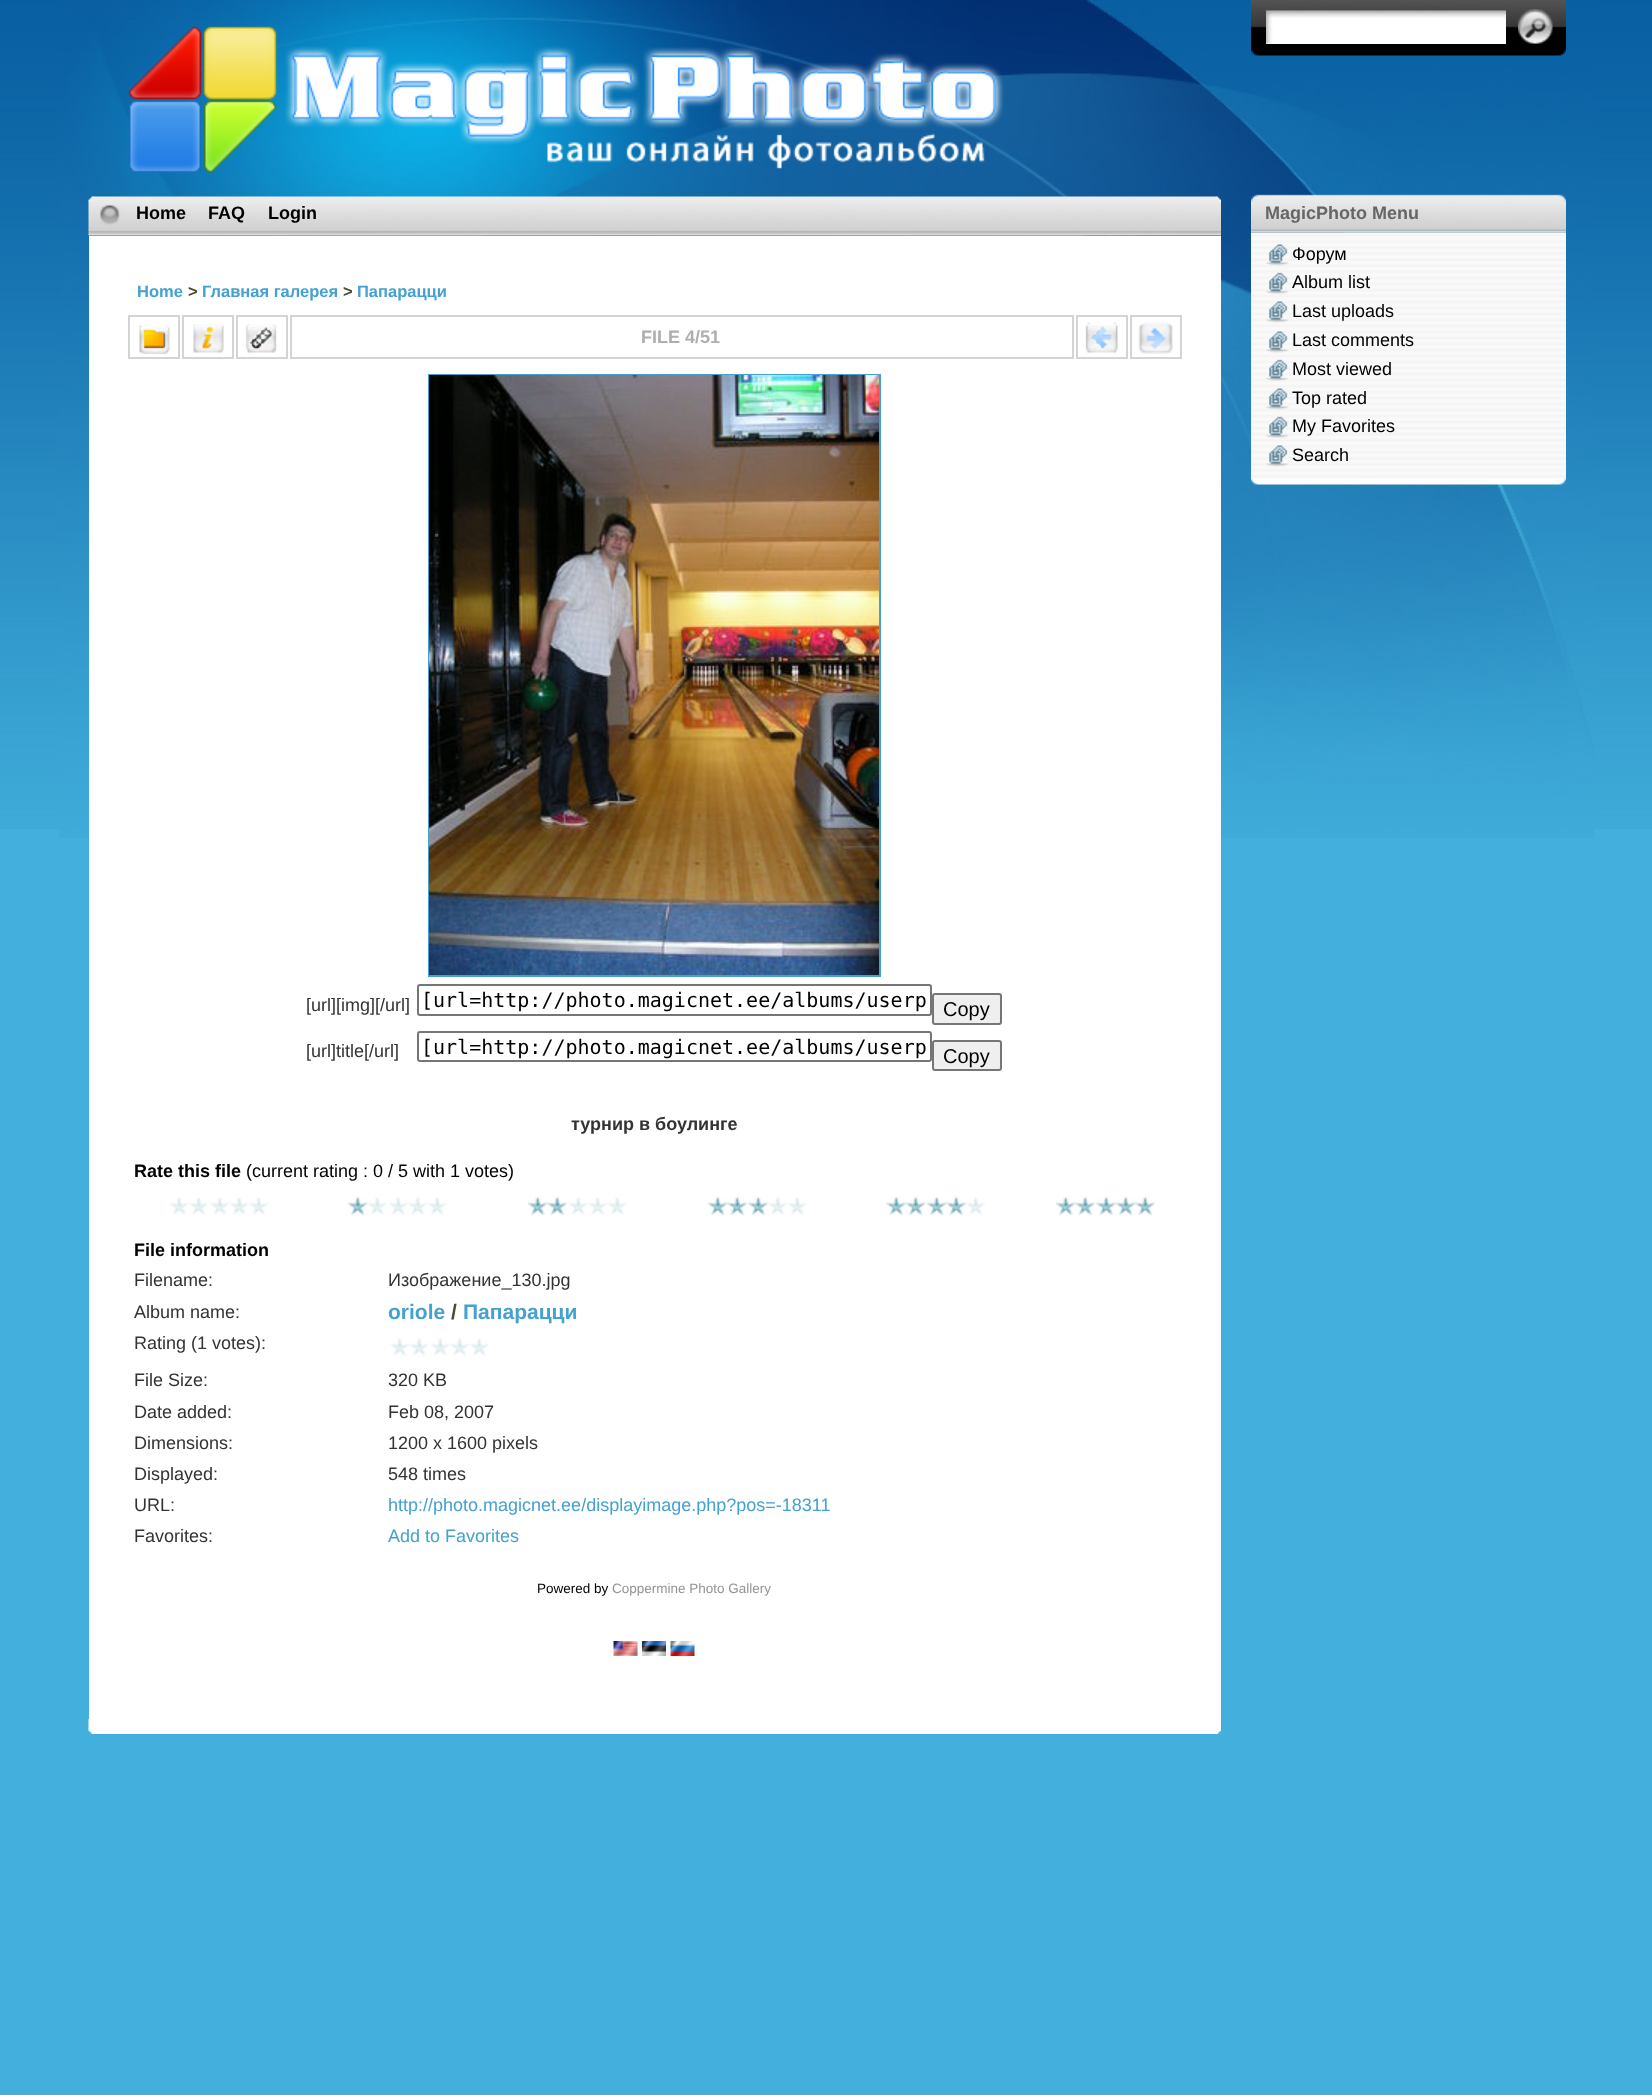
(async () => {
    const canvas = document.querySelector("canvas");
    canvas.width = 1652;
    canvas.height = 2095;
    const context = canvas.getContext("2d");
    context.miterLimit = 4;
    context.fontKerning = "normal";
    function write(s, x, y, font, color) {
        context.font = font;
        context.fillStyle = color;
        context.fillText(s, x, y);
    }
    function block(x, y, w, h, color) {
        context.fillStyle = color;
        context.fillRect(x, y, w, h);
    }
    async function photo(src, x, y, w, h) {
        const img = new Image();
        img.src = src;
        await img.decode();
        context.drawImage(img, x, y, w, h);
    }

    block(0, 0, 1652, 2095, "rgb(66, 175, 220)");
    await photo("media/1.png", 0, 0, 1652, 829);
    await photo("media/2.png", 59, 0, 1535, 838);
    await photo("media/3.png", 128, 26, 149, 147);
    await photo("media/4.png", 285, 46, 719, 123);
    await photo("media/5.png", 1251, 0, 315, 56);
    block(1266, 43, 240, 1, "rgb(255, 255, 255)");
    await photo("media/6.png", 1266, 10, 240, 34);
    await photo("media/7.png", 1518, 9, 35, 35);
    await photo("media/8.png", 88, 196, 1133, 40);
    write("Home", 136, 219, "bold 18px Liberation Sans", "rgb(0, 0, 0)");
    write("FAQ", 208, 219, "bold 18px Liberation Sans", "rgb(0, 0, 0)");
    write("Login", 268, 219, "bold 18px Liberation Sans", "rgb(0, 0, 0)");
    block(89, 236, 1132, 1483, "rgb(255, 255, 255)");
    write("Home", 137, 297, "bold 16.5px Liberation Sans", "rgb(68, 161, 208)");
    write(">", 188, 297, "bold 16.5px Liberation Sans", "rgb(76, 74, 47)");
    write("Главная галерея", 202, 297, "bold 16.5px Liberation Sans", "rgb(68, 161, 208)");
    write(">", 343, 297, "bold 16.5px Liberation Sans", "rgb(76, 74, 47)");
    write("Папарацци", 357, 297, "bold 16.5px Liberation Sans", "rgb(68, 161, 208)");
    context.strokeStyle = "rgb(212, 212, 212)";
    context.lineWidth = 2;
    context.strokeRect(129, 316, 50, 42);
    await photo("media/9.png", 139, 325, 31, 29);
    context.strokeRect(183, 316, 50, 42);
    await photo("media/10.png", 193, 324, 31, 29);
    context.strokeRect(237, 316, 50, 42);
    await photo("media/11.png", 245, 324, 32, 29);
    context.strokeRect(291, 316, 782, 42);
    write("FILE 4/51", 641, 343, "bold 18px Liberation Sans", "rgb(174, 174, 174)");
    context.strokeRect(1077, 316, 50, 42);
    await photo("media/12.png", 1085, 322, 33, 31);
    context.strokeRect(1131, 316, 50, 42);
    await photo("media/13.png", 1138, 322, 35, 32);
    context.strokeStyle = "rgb(68, 161, 208)";
    context.strokeRect(429, 375, 451, 601);
    await photo("media/14.png", 429, 375, 450, 600);
    write("[url][img][/url]", 306, 1011, "18px Liberation Sans", "rgb(51, 51, 51)");
    context.beginPath();
    context.roundRect(418, 985, 513, 30, 2);
    context.strokeStyle = "rgb(118, 118, 118)";
    context.stroke();
    write("[url=http://photo.magicnet.ee/albums/userp", 421, 1007, "20px DejaVu Sans Mono", "rgb(0, 0, 0)");
    context.fillStyle = "rgb(239, 239, 239)";
    context.beginPath();
    context.roundRect(933, 994, 68, 30, 2);
    context.fill();
    context.stroke();
    write("Copy", 943, 1016, "20px Liberation Sans", "rgb(0, 0, 0)");
    write("[url]title[/url]", 306, 1057, "18px Liberation Sans", "rgb(51, 51, 51)");
    context.beginPath();
    context.roundRect(418, 1032, 513, 29, 2);
    context.stroke();
    write("[url=http://photo.magicnet.ee/albums/userp", 421, 1054, "20px DejaVu Sans Mono", "rgb(0, 0, 0)");
    context.fillStyle = "rgb(239, 239, 239)";
    context.beginPath();
    context.roundRect(933, 1041, 68, 29, 2);
    context.fill();
    context.stroke();
    write("Copy", 943, 1063, "20px Liberation Sans", "rgb(0, 0, 0)");
    write("турнир в боулинге", 571, 1130, "bold 18px Liberation Sans", "rgb(51, 51, 51)");
    write("Rate this file", 134, 1177, "bold 18px Liberation Sans", "rgb(0, 0, 0)");
    write("(current rating : 0 / 5 with 1 votes)", 246, 1177, "18px Liberation Sans", "rgb(0, 0, 0)");
    await photo("media/15.png", 169, 1197, 100, 18);
    await photo("media/16.png", 347, 1196, 100, 20);
    await photo("media/17.png", 527, 1196, 100, 20);
    await photo("media/18.png", 707, 1196, 100, 20);
    await photo("media/19.png", 886, 1196, 100, 20);
    await photo("media/20.png", 1055, 1196, 100, 20);
    write("File information", 134, 1256, "bold 18px Liberation Sans", "rgb(0, 0, 0)");
    write("Filename:", 134, 1286, "18px Liberation Sans", "rgb(51, 51, 51)");
    write("Изображение_130.jpg", 388, 1286, "18px Liberation Sans", "rgb(51, 51, 51)");
    write("Album name:", 134, 1318, "18px Liberation Sans", "rgb(51, 51, 51)");
    write("oriole", 388, 1319, "bold 21px Liberation Sans", "rgb(68, 161, 208)");
    write("/", 451, 1319, "bold 21px Liberation Sans", "rgb(76, 74, 47)");
    write("Папарацци", 463, 1319, "bold 21px Liberation Sans", "rgb(68, 161, 208)");
    write("Rating (1 votes):", 134, 1349, "18px Liberation Sans", "rgb(51, 51, 51)");
    await photo("media/21.png", 390, 1338, 99, 18);
    write("File Size:", 134, 1386, "18px Liberation Sans", "rgb(51, 51, 51)");
    write("320 KB", 388, 1386, "18px Liberation Sans", "rgb(51, 51, 51)");
    write("Date added:", 134, 1418, "18px Liberation Sans", "rgb(51, 51, 51)");
    write("Feb 08, 2007", 388, 1418, "18px Liberation Sans", "rgb(51, 51, 51)");
    write("Dimensions:", 134, 1449, "18px Liberation Sans", "rgb(51, 51, 51)");
    write("1200 x 1600 pixels", 388, 1449, "18px Liberation Sans", "rgb(51, 51, 51)");
    write("Displayed:", 134, 1480, "18px Liberation Sans", "rgb(51, 51, 51)");
    write("548 times", 388, 1480, "18px Liberation Sans", "rgb(51, 51, 51)");
    write("URL:", 134, 1511, "18px Liberation Sans", "rgb(51, 51, 51)");
    write("http://photo.magicnet.ee/displayimage.php?pos=-18311", 388, 1511, "18px Liberation Sans", "rgb(68, 161, 208)");
    write("Favorites:", 134, 1542, "18px Liberation Sans", "rgb(51, 51, 51)");
    write("Add to Favorites", 388, 1542, "18px Liberation Sans", "rgb(68, 161, 208)");
    write("Powered by", 537, 1593, "13.5px Liberation Sans", "rgb(0, 0, 0)");
    write("Coppermine Photo Gallery", 612, 1593, "13.5px Liberation Sans", "rgb(148, 148, 148)");
    await photo("media/22.png", 613, 1641, 25, 15);
    await photo("media/23.png", 642, 1641, 24, 15);
    await photo("media/24.png", 670, 1641, 25, 15);
    await photo("media/25.png", 88, 1719, 1133, 15);
    await photo("media/27.png", 1251, 232, 315, 253);
    await photo("media/26.png", 1251, 194, 315, 39);
    write("MagicPhoto Menu", 1265, 219, "bold 18px Liberation Sans", "rgb(102, 102, 102)");
    await photo("media/28.png", 1266, 244, 23, 22);
    write("Форум", 1292, 260, "18px Liberation Sans", "rgb(0, 0, 0)");
    await photo("media/29.png", 1266, 272, 23, 22);
    write("Album list", 1292, 288, "18px Liberation Sans", "rgb(0, 0, 0)");
    await photo("media/30.png", 1266, 301, 23, 22);
    write("Last uploads", 1292, 317, "18px Liberation Sans", "rgb(0, 0, 0)");
    await photo("media/31.png", 1266, 331, 23, 22);
    write("Last comments", 1292, 346, "18px Liberation Sans", "rgb(0, 0, 0)");
    await photo("media/32.png", 1266, 359, 23, 22);
    write("Most viewed", 1292, 375, "18px Liberation Sans", "rgb(0, 0, 0)");
    await photo("media/33.png", 1266, 388, 23, 22);
    write("Top rated", 1292, 404, "18px Liberation Sans", "rgb(0, 0, 0)");
    await photo("media/34.png", 1266, 416, 23, 22);
    write("My Favorites", 1292, 432, "18px Liberation Sans", "rgb(0, 0, 0)");
    await photo("media/35.png", 1266, 445, 23, 22);
    write("Search", 1292, 461, "18px Liberation Sans", "rgb(0, 0, 0)");
})();
